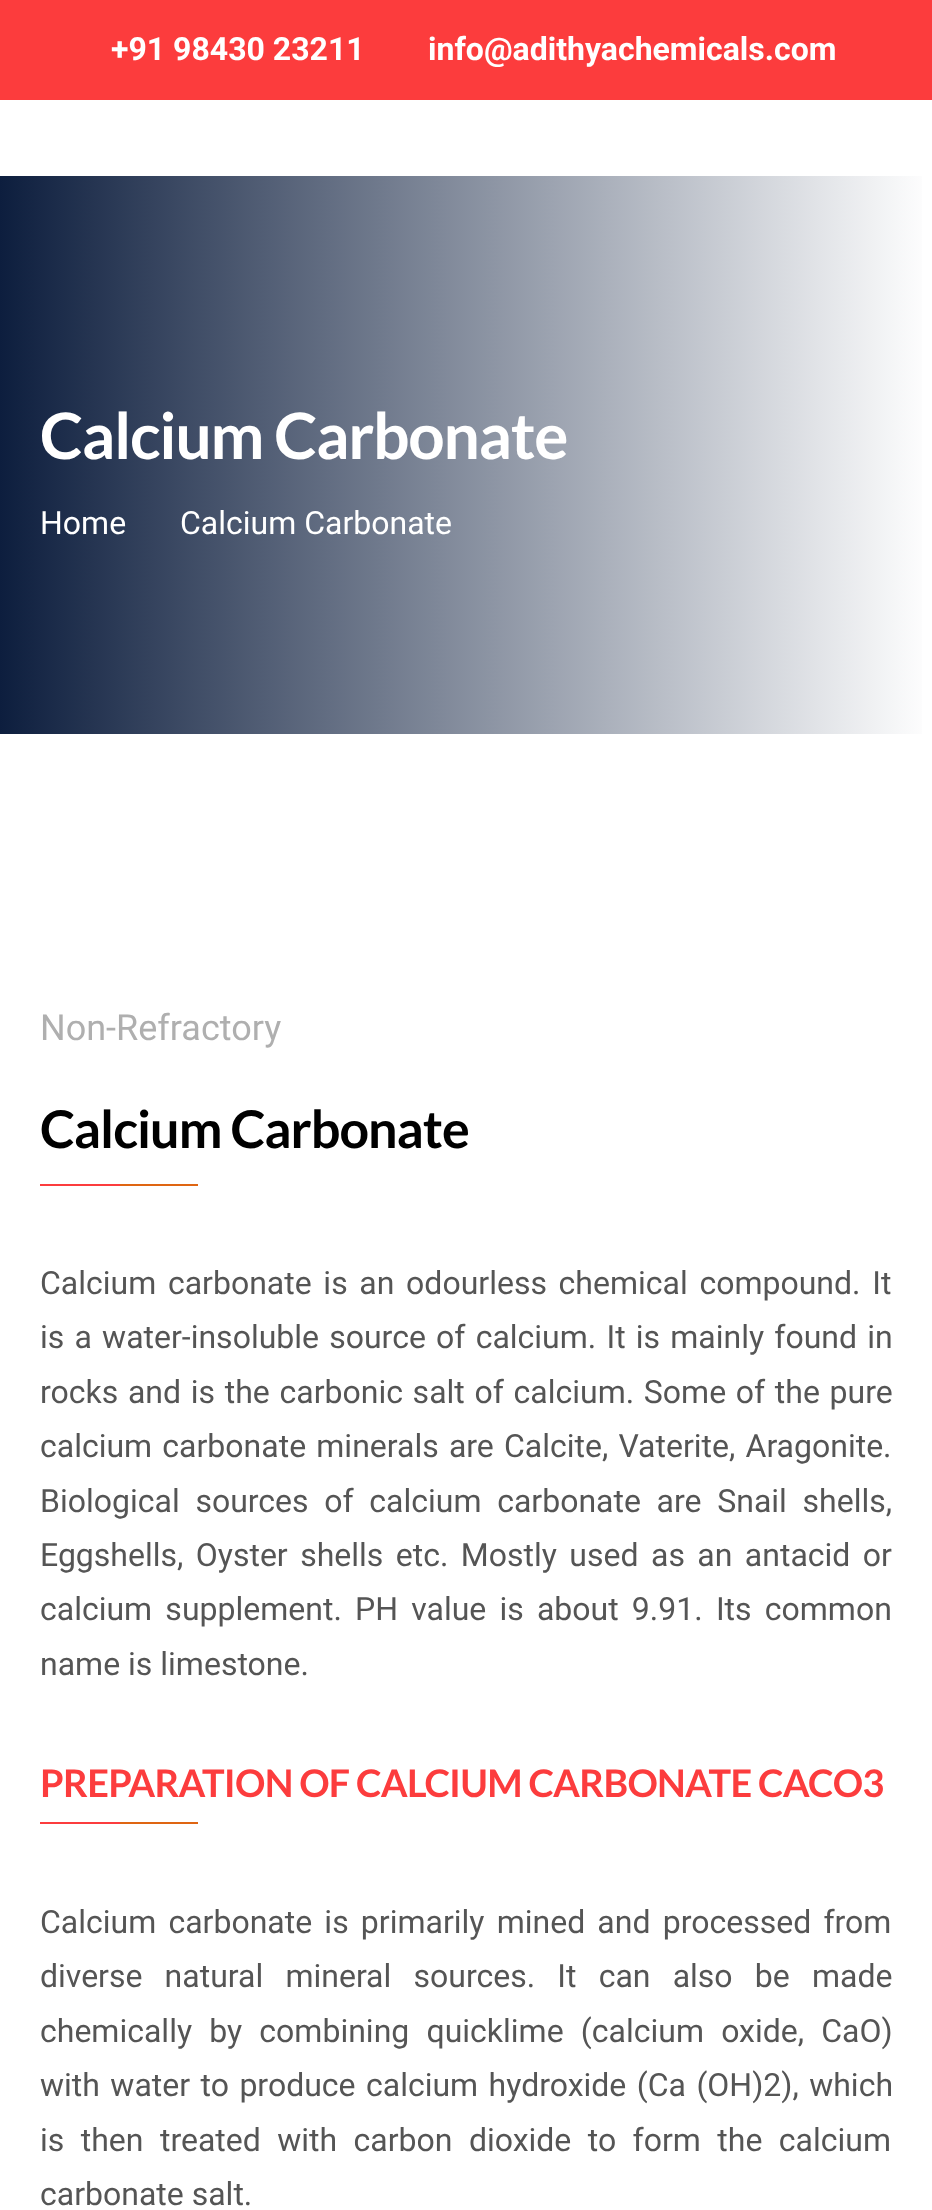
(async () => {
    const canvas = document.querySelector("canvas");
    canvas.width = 932;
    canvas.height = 2210;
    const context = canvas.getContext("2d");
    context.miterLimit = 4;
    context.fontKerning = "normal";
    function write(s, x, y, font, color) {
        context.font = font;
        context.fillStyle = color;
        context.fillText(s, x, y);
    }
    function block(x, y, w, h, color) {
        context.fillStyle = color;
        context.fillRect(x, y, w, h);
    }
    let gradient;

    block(0, 0, 932, 2210, "rgb(255, 255, 255)");
    block(0, 0, 932, 100, "rgb(252, 60, 61)");
    write("+91 98430 23211", 111, 60, "bold 32px Roboto", "rgb(255, 255, 255)");
    write("info@adithyachemicals.com", 428, 60, "bold 32px Roboto", "rgb(255, 255, 255)");
    gradient = context.createLinearGradient(0, 455, 932, 455);
    gradient.addColorStop(0, "rgb(13, 30, 62)");
    gradient.addColorStop(1, "rgb(255, 255, 255)");
    context.fillStyle = gradient;
    context.fillRect(0, 176, 922, 558);
    context.letterSpacing = "-1.25px";
    write("Calcium Carbonate", 40, 459, "bold 64px Lato", "rgb(255, 255, 255)");
    context.letterSpacing = "0px";
    write("Home", 40, 534, "32px Roboto", "rgb(255, 255, 255)");
    write("Calcium Carbonate", 180, 534, "32px Roboto", "rgb(255, 255, 255)");
    write("Non-Refractory", 40, 1040, "36px Roboto", "rgb(175, 175, 175)");
    context.letterSpacing = "-1px";
    write("Calcium Carbonate", 40, 1148, "bold 52px Lato", "rgb(0, 0, 0)");
    block(40, 1184, 80, 2, "rgb(252, 60, 61)");
    block(120, 1184, 78, 2, "rgb(223, 101, 18)");
    context.letterSpacing = "0px";
    context.wordSpacing = "3.75px";
    write("Calcium carbonate is an odourless chemical compound. It", 40, 1294, "32px Roboto", "rgb(85, 85, 85)");
    context.wordSpacing = "2.25px";
    write("is a water-insoluble source of calcium. It is mainly found in", 40, 1348, "32px Roboto", "rgb(85, 85, 85)");
    context.wordSpacing = "1.75px";
    write("rocks and is the carbonic salt of calcium. Some of the pure", 40, 1403, "32px Roboto", "rgb(85, 85, 85)");
    context.wordSpacing = "2.25px";
    write("calcium carbonate minerals are Calcite, Vaterite, Aragonite.", 40, 1457, "32px Roboto", "rgb(85, 85, 85)");
    context.wordSpacing = "7.75px";
    write("Biological sources of calcium carbonate are Snail shells,", 40, 1512, "32px Roboto", "rgb(85, 85, 85)");
    context.wordSpacing = "4.5px";
    write("Eggshells, Oyster shells etc. Mostly used as an antacid or", 40, 1566, "32px Roboto", "rgb(85, 85, 85)");
    context.wordSpacing = "5.25px";
    write("calcium supplement. PH value is about 9.91. Its common", 40, 1620, "32px Roboto", "rgb(85, 85, 85)");
    context.wordSpacing = "0px";
    write("name is limestone.", 40, 1675, "32px Roboto", "rgb(85, 85, 85)");
    context.letterSpacing = "-0.75px";
    write("PREPARATION OF CALCIUM CARBONATE CACO3", 40, 1797, "bold 38px Lato", "rgb(252, 60, 61)");
    block(40, 1822, 80, 2, "rgb(252, 60, 61)");
    block(120, 1822, 78, 2, "rgb(223, 101, 18)");
    context.letterSpacing = "0px";
    context.wordSpacing = "4.25px";
    write("Calcium carbonate is primarily mined and processed from", 40, 1933, "32px Roboto", "rgb(85, 85, 85)");
    context.wordSpacing = "14.25px";
    write("diverse natural mineral sources. It can also be made", 40, 1987, "32px Roboto", "rgb(85, 85, 85)");
    context.wordSpacing = "9.25px";
    write("chemically by combining quicklime (calcium oxide, CaO)", 40, 2042, "32px Roboto", "rgb(85, 85, 85)");
    context.wordSpacing = "2.5px";
    write("with water to produce calcium hydroxide (Ca (OH)2), which", 40, 2096, "32px Roboto", "rgb(85, 85, 85)");
    context.wordSpacing = "8.5px";
    write("is then treated with carbon dioxide to form the calcium", 40, 2151, "32px Roboto", "rgb(85, 85, 85)");
    context.wordSpacing = "0px";
    write("carbonate salt.", 40, 2205, "32px Roboto", "rgb(85, 85, 85)");
})();
